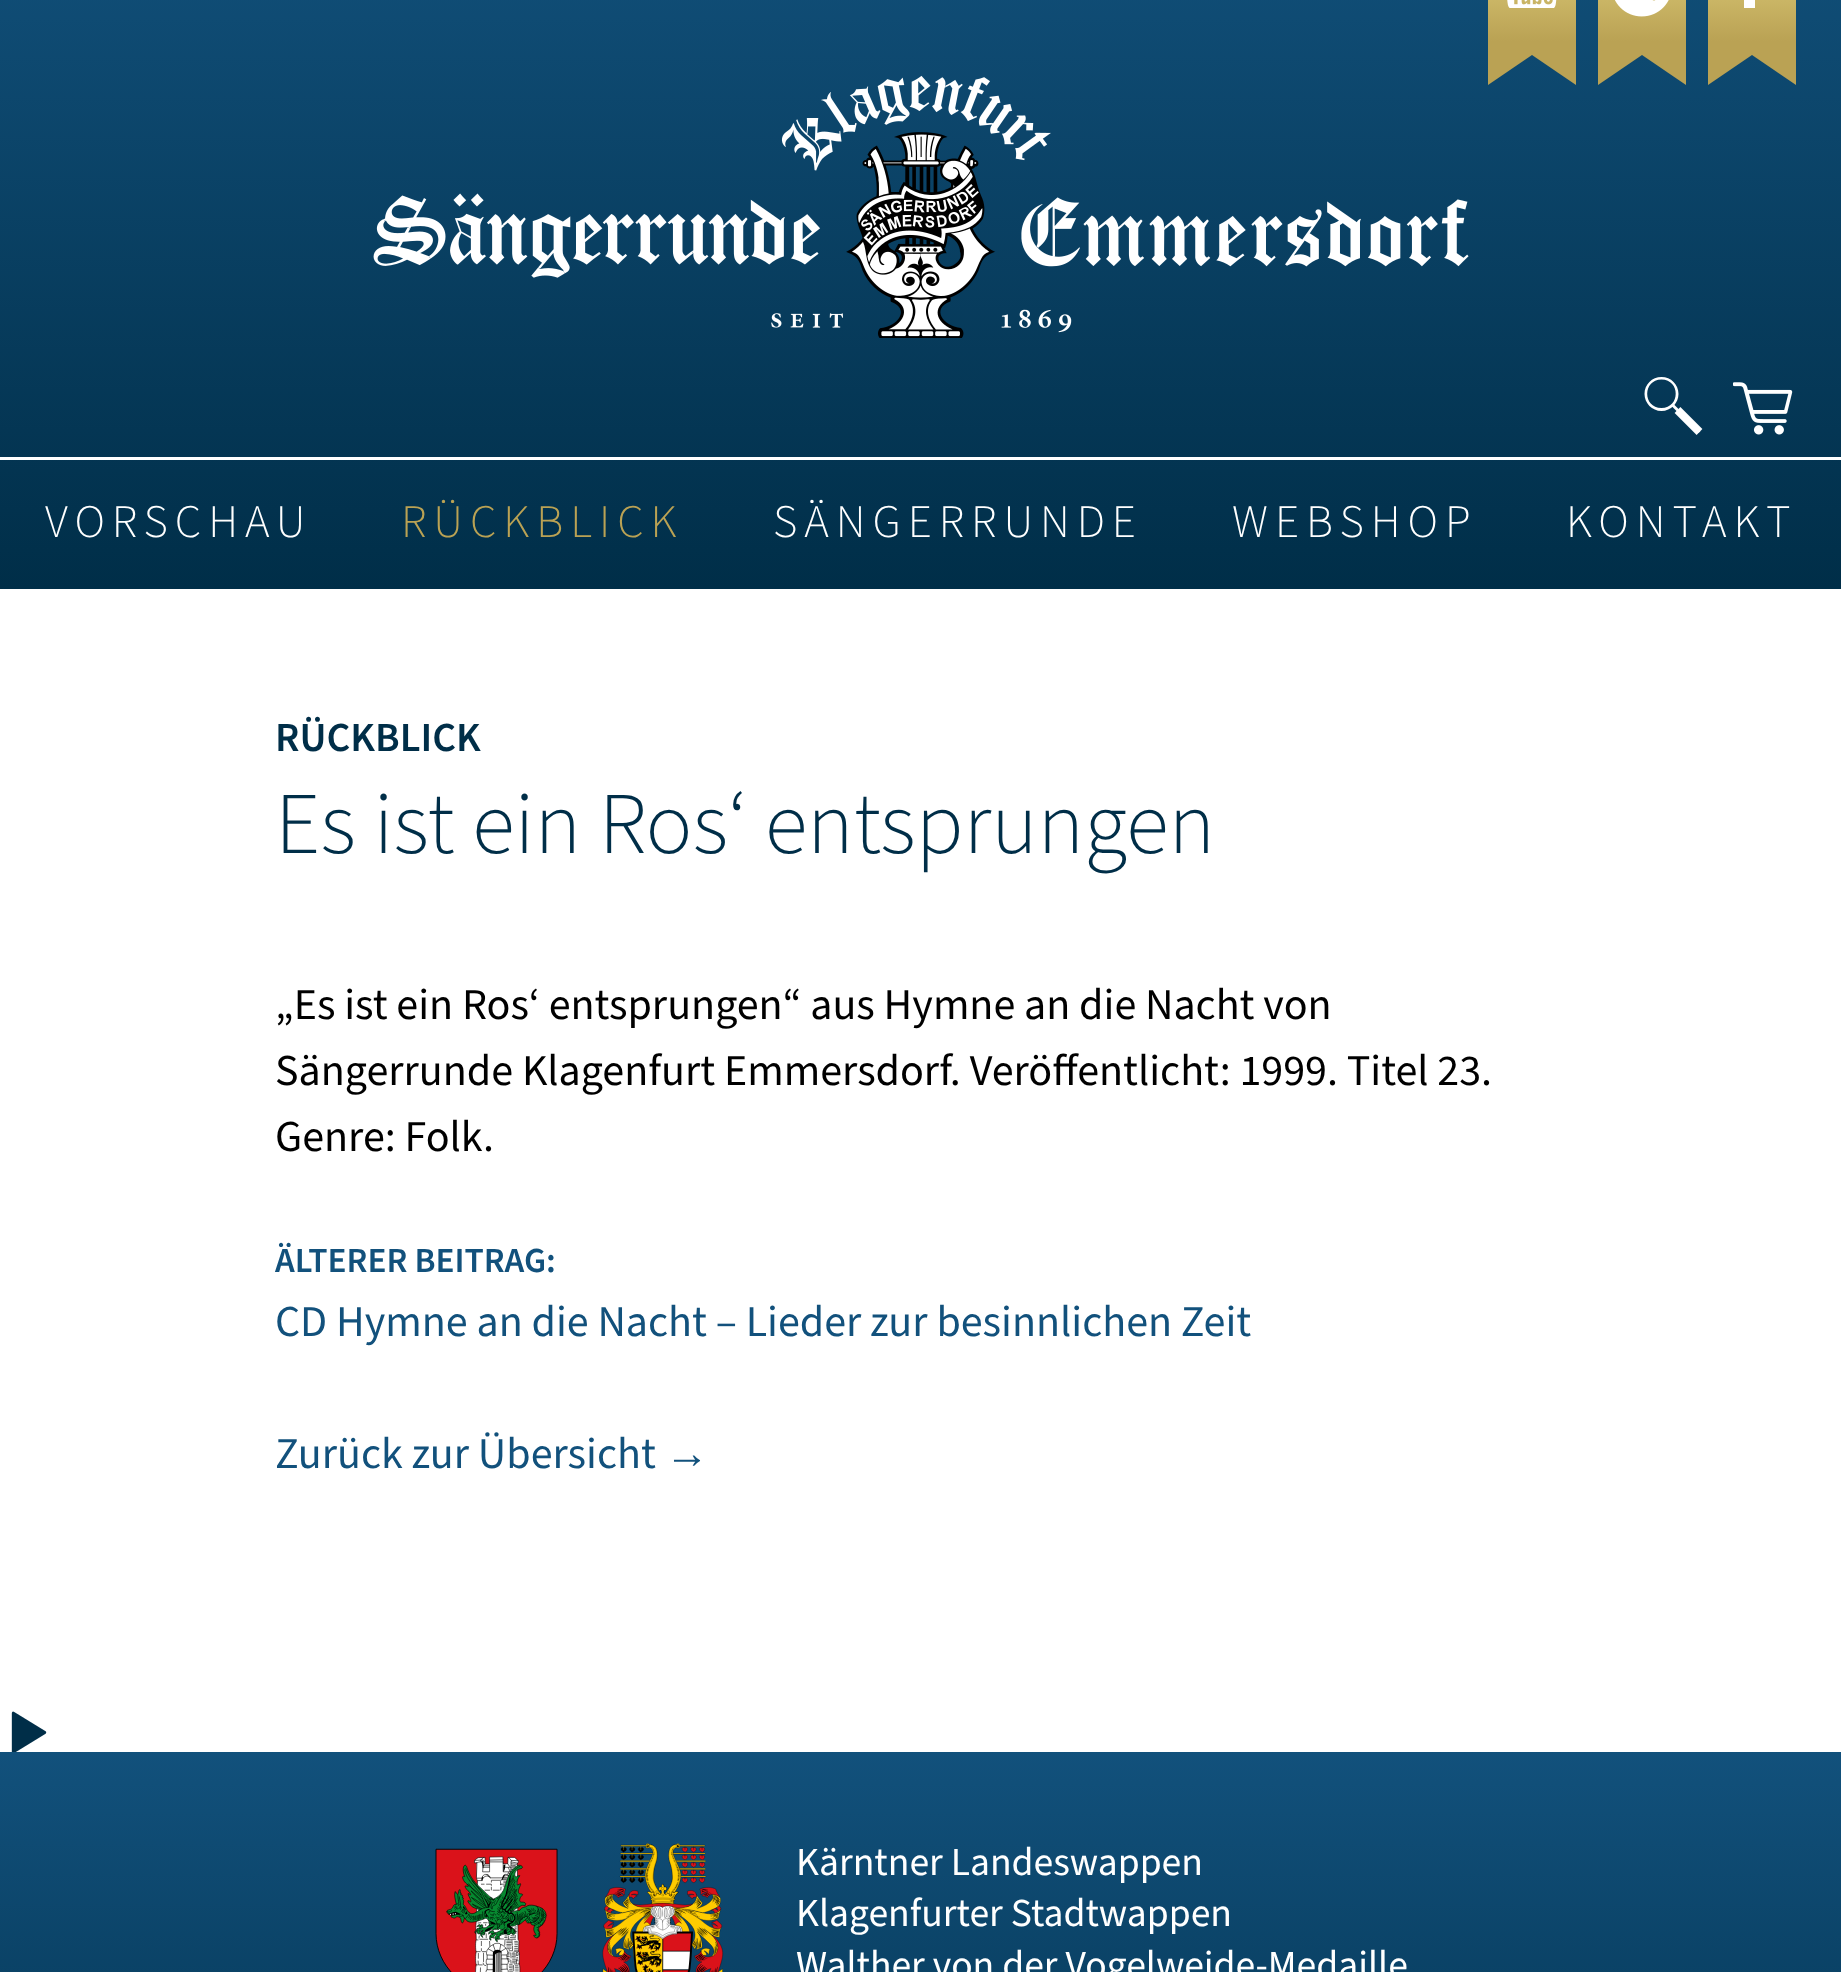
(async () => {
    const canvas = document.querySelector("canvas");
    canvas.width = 1841;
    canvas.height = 1972;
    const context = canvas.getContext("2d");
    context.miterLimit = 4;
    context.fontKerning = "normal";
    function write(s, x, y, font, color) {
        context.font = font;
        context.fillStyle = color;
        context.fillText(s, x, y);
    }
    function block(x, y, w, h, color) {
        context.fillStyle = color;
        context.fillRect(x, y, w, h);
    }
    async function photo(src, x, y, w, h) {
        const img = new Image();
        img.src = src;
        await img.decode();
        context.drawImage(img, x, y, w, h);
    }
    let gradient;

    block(0, 0, 1841, 1972, "rgb(255, 255, 255)");
    gradient = context.createLinearGradient(921, -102, 921, 589);
    gradient.addColorStop(0, "rgb(18, 81, 124)");
    gradient.addColorStop(1, "rgb(0, 46, 72)");
    context.fillStyle = gradient;
    context.fillRect(0, 0, 1841, 589);
    await photo("media/1.png", 373, 75, 1096, 263);
    gradient = context.createLinearGradient(1543, 41, 1543, -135);
    gradient.addColorStop(0, "rgb(186, 162, 84)");
    gradient.addColorStop(1, "rgb(255, 245, 158)");
    context.fillStyle = gradient;
    context.fillRect(1488, 0, 88, 41);
    await photo("media/2.png", 1507, 0, 50, 8);
    context.fillStyle = "rgb(186, 162, 84)";
    context.beginPath();
    context.moveTo(1576, 41);
    context.lineTo(1576, 85);
    context.lineTo(1532, 55);
    context.lineTo(1532, 41);
    context.closePath();
    context.fill();
    context.beginPath();
    context.moveTo(1488, 85);
    context.lineTo(1488, 41);
    context.lineTo(1532, 41);
    context.lineTo(1532, 55);
    context.closePath();
    context.fill();
    gradient = context.createLinearGradient(1653, 41, 1653, -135);
    gradient.addColorStop(0, "rgb(186, 162, 84)");
    gradient.addColorStop(1, "rgb(255, 245, 158)");
    context.fillStyle = gradient;
    context.fillRect(1598, 0, 88, 41);
    await photo("media/3.png", 1615, 0, 54, 17);
    context.fillStyle = "rgb(186, 162, 84)";
    context.beginPath();
    context.moveTo(1686, 41);
    context.lineTo(1686, 85);
    context.lineTo(1642, 55);
    context.lineTo(1642, 41);
    context.closePath();
    context.fill();
    context.beginPath();
    context.moveTo(1598, 85);
    context.lineTo(1598, 41);
    context.lineTo(1642, 41);
    context.lineTo(1642, 55);
    context.closePath();
    context.fill();
    gradient = context.createLinearGradient(1763, 41, 1763, -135);
    gradient.addColorStop(0, "rgb(186, 162, 84)");
    gradient.addColorStop(1, "rgb(255, 245, 158)");
    context.fillStyle = gradient;
    context.fillRect(1708, 0, 88, 41);
    block(1744, 0, 11, 8, "rgb(255, 255, 255)");
    context.fillStyle = "rgb(186, 162, 84)";
    context.beginPath();
    context.moveTo(1796, 41);
    context.lineTo(1796, 85);
    context.lineTo(1752, 55);
    context.lineTo(1752, 41);
    context.closePath();
    context.fill();
    context.beginPath();
    context.moveTo(1708, 85);
    context.lineTo(1708, 41);
    context.lineTo(1752, 41);
    context.lineTo(1752, 55);
    context.closePath();
    context.fill();
    context.fillStyle = "rgb(255, 255, 255)";
    context.beginPath();
    context.moveTo(1661.5, 379.5);
    context.bezierCurveTo(1680.5, 379.5, 1680.5, 408, 1661.5, 408);
    context.bezierCurveTo(1642.5, 408, 1642.5, 379.5, 1661.5, 379.5);
    context.moveTo(1661.5, 377);
    context.bezierCurveTo(1652, 377, 1644.5, 384.5, 1644.5, 394);
    context.bezierCurveTo(1644.5, 403, 1652, 411, 1661.5, 411);
    context.bezierCurveTo(1671, 411, 1678.5, 403, 1678.5, 394);
    context.bezierCurveTo(1678.5, 384.5, 1671, 377, 1661.5, 377);
    context.closePath();
    context.fill();
    context.beginPath();
    context.moveTo(1672.5, 405);
    context.lineTo(1699.5, 432);
    context.strokeStyle = "rgb(255, 255, 255)";
    context.lineWidth = 2.8;
    context.stroke();
    context.beginPath();
    context.moveTo(1677.5, 410);
    context.lineTo(1699.5, 432);
    context.lineWidth = 8.2;
    context.stroke();
    await photo("media/4.png", 1733, 382, 60, 53);
    block(0, 457, 1841, 3, "rgb(255, 255, 255)");
    context.letterSpacing = "7px";
    write("VORSCHAU", 45, 537, "300 46.75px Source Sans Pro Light", "rgb(255, 255, 255)");
    write("RÜCKBLICK", 401, 537, "300 46.75px Source Sans Pro Light", "rgb(186, 162, 84)");
    write("SÄNGERRUNDE", 773, 537, "300 46.75px Source Sans Pro Light", "rgb(255, 255, 255)");
    write("WEBSHOP", 1232, 537, "300 46.75px Source Sans Pro Light", "rgb(255, 255, 255)");
    write("KONTAKT", 1566, 537, "300 46.75px Source Sans Pro Light", "rgb(255, 255, 255)");
    context.letterSpacing = "0px";
    write("RÜCKBLICK", 275, 751, "600 41.25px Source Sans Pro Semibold", "rgb(0, 46, 72)");
    write("Es ist ein Ros‘ entsprungen", 275, 853, "300 88px Source Sans Pro Light", "rgb(0, 46, 72)");
    write("„Es ist ein Ros‘ entsprungen“ aus Hymne an die Nacht von", 275, 1019, "44px Source Sans Pro", "rgb(0, 0, 0)");
    write("Sängerrunde Klagenfurt Emmersdorf. Veröffentlicht: 1999. Titel 23.", 275, 1085, "44px Source Sans Pro", "rgb(0, 0, 0)");
    write("Genre: Folk.", 275, 1151, "44px Source Sans Pro", "rgb(0, 0, 0)");
    await photo("media/5.png", 11, 1711, 36, 41);
    write("ÄLTERER BEITRAG:", 275, 1272, "600 35.25px Source Sans Pro Semibold", "rgb(18, 81, 124)");
    write("CD Hymne an die Nacht – Lieder zur besinnlichen Zeit", 275, 1336, "44px Source Sans Pro", "rgb(18, 81, 124)");
    write("Zurück zur Übersicht", 275, 1468, "44px Source Sans Pro", "rgb(18, 81, 124)");
    write("→", 665, 1468, "44px Liberation Sans", "rgb(18, 81, 124)");
    gradient = context.createLinearGradient(921, 1752, 921, 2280);
    gradient.addColorStop(0, "rgb(18, 81, 124)");
    gradient.addColorStop(1, "rgb(0, 46, 72)");
    context.fillStyle = gradient;
    context.fillRect(0, 1752, 1841, 220);
    await photo("media/6.png", 435, 1848, 123, 124);
    await photo("media/7.png", 602, 1843, 122, 129);
    write("Kärntner Landeswappen", 796, 1875, "39.6px Source Sans Pro", "rgb(255, 255, 255)");
    write("Klagenfurter Stadtwappen", 796, 1926, "39.6px Source Sans Pro", "rgb(255, 255, 255)");
    write("Walther von der Vogelweide-Medaille", 796, 1978, "39.6px Source Sans Pro", "rgb(255, 255, 255)");
})();
